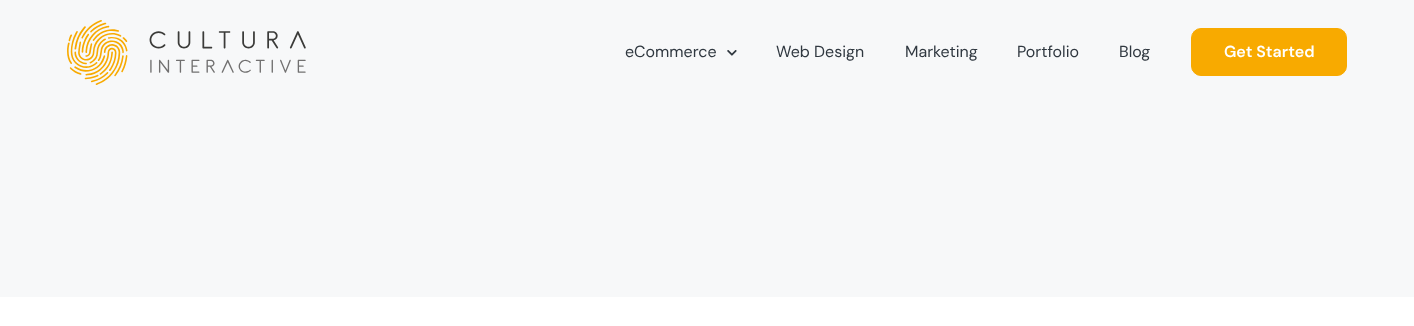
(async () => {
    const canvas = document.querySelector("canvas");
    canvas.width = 1414;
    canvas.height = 326;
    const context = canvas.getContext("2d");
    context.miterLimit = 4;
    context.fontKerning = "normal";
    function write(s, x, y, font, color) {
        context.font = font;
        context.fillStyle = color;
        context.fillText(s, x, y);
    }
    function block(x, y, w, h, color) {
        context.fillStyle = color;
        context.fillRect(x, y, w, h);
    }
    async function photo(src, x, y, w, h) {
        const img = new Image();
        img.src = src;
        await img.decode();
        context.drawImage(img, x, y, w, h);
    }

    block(0, 0, 1414, 326, "rgb(255, 255, 255)");
    block(0, 0, 1414, 297, "rgb(247, 248, 249)");
    await photo("media/1.png", 67, 20, 239, 65);
    write("eCommerce", 625, 57, "16px DM Sans", "rgb(48, 56, 64)");
    await photo("media/2.png", 727, 50, 10, 6);
    write("Web Design", 776, 57, "16px DM Sans", "rgb(48, 56, 64)");
    write("Marketing", 905, 57, "16px DM Sans", "rgb(48, 56, 64)");
    write("Portfolio", 1017, 57, "16px DM Sans", "rgb(48, 56, 64)");
    write("Blog", 1119, 57, "16px DM Sans", "rgb(48, 56, 64)");
    context.fillStyle = "rgb(248, 170, 0)";
    context.beginPath();
    context.roundRect(1191.5, 28.5, 155, 47, 9.5);
    context.fill();
    context.strokeStyle = "rgb(248, 170, 0)";
    context.stroke();
    write("Get Started", 1224, 57, "600 16px DM Sans", "rgb(255, 255, 255)");
})();
